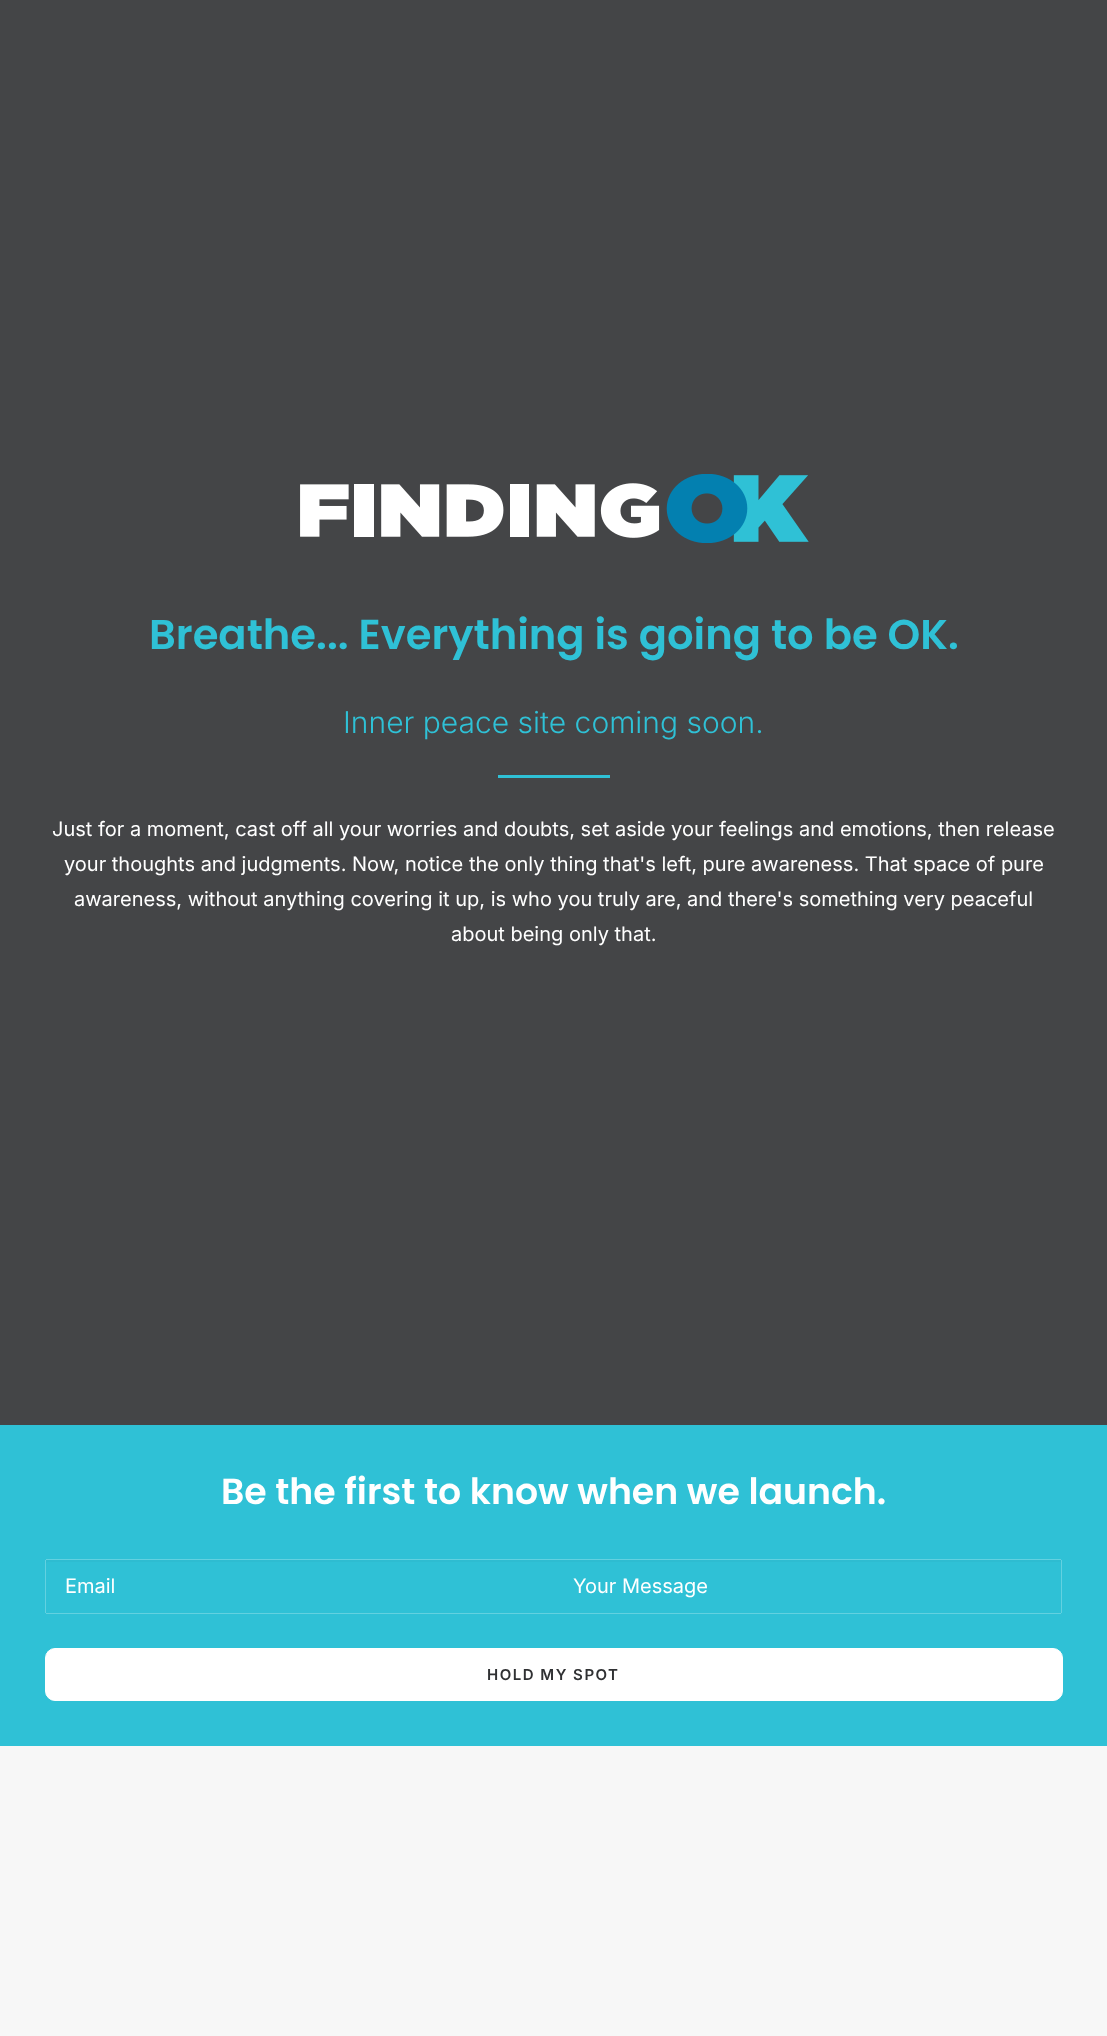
(async () => {
    const canvas = document.querySelector("canvas");
    canvas.width = 1107;
    canvas.height = 2036;
    const context = canvas.getContext("2d");
    context.miterLimit = 4;
    context.fontKerning = "normal";
    function write(s, x, y, font, color) {
        context.font = font;
        context.fillStyle = color;
        context.fillText(s, x, y);
    }
    function block(x, y, w, h, color) {
        context.fillStyle = color;
        context.fillRect(x, y, w, h);
    }
    async function photo(src, x, y, w, h) {
        const img = new Image();
        img.src = src;
        await img.decode();
        context.drawImage(img, x, y, w, h);
    }

    block(0, 0, 1107, 2036, "rgb(247, 247, 247)");
    block(0, 0, 1107, 1425, "rgb(68, 69, 71)");
    await photo("media/1.png", 300, 474, 509, 69);
    write("Breathe... Everything is going to be OK.", 149, 649, "600 41.7px Poppins", "rgb(47, 193, 214)");
    write("Inner peace site coming soon.", 343, 733, "300 30px Inter", "rgb(47, 193, 214)");
    block(498, 775, 112, 3, "rgb(47, 193, 214)");
    write("Just for a moment, cast off all your worries and doubts, set aside your feelings and emotions, then release", 52, 836, "20px Inter", "rgb(255, 255, 255)");
    write("your thoughts and judgments. Now, notice the only thing that's left, pure awareness. That space of pure", 64, 871, "20px Inter", "rgb(255, 255, 255)");
    write("awareness, without anything covering it up, is who you truly are, and there's something very peaceful", 74, 906, "20px Inter", "rgb(255, 255, 255)");
    write("about being only that.", 451, 941, "20px Inter", "rgb(255, 255, 255)");
    block(0, 1425, 1107, 321, "rgb(47, 193, 214)");
    write("Be the first to know when we launch.", 221, 1504, "600 36.25px Poppins", "rgb(255, 255, 255)");
    context.fillStyle = "rgb(46, 188, 209)";
    context.beginPath();
    context.moveTo(48, 1562);
    context.lineTo(554, 1562);
    context.lineTo(554, 1560);
    context.lineTo(46, 1560);
    context.lineTo(46, 1564);
    context.bezierCurveTo(46, 1563, 47, 1562, 48, 1562);
    context.closePath();
    context.fill();
    block(46, 1559, 1015, 1, "rgb(99, 209, 224)");
    block(46, 1613, 1015, 1, "rgb(99, 209, 224)");
    block(45, 1560, 1, 53, "rgb(99, 209, 224)");
    write("Email", 65, 1593, "20px Inter", "rgb(255, 255, 255)");
    context.fillStyle = "rgb(46, 188, 209)";
    context.beginPath();
    context.moveTo(554, 1562);
    context.lineTo(1060, 1562);
    context.bezierCurveTo(1061, 1562, 1061, 1563, 1061, 1564);
    context.lineTo(1061, 1560);
    context.lineTo(554, 1560);
    context.closePath();
    context.fill();
    block(1061, 1560, 1, 53, "rgb(99, 209, 224)");
    write("Your Message", 573, 1593, "20px Inter", "rgb(255, 255, 255)");
    context.beginPath();
    context.roundRect(45.5, 1648.5, 1017, 52, 9.5);
    context.fill();
    context.strokeStyle = "rgb(255, 255, 255)";
    context.stroke();
    context.letterSpacing = "1.5px";
    write("HOLD MY SPOT", 487, 1680, "600 15px Inter", "rgb(48, 49, 51)");
})();
